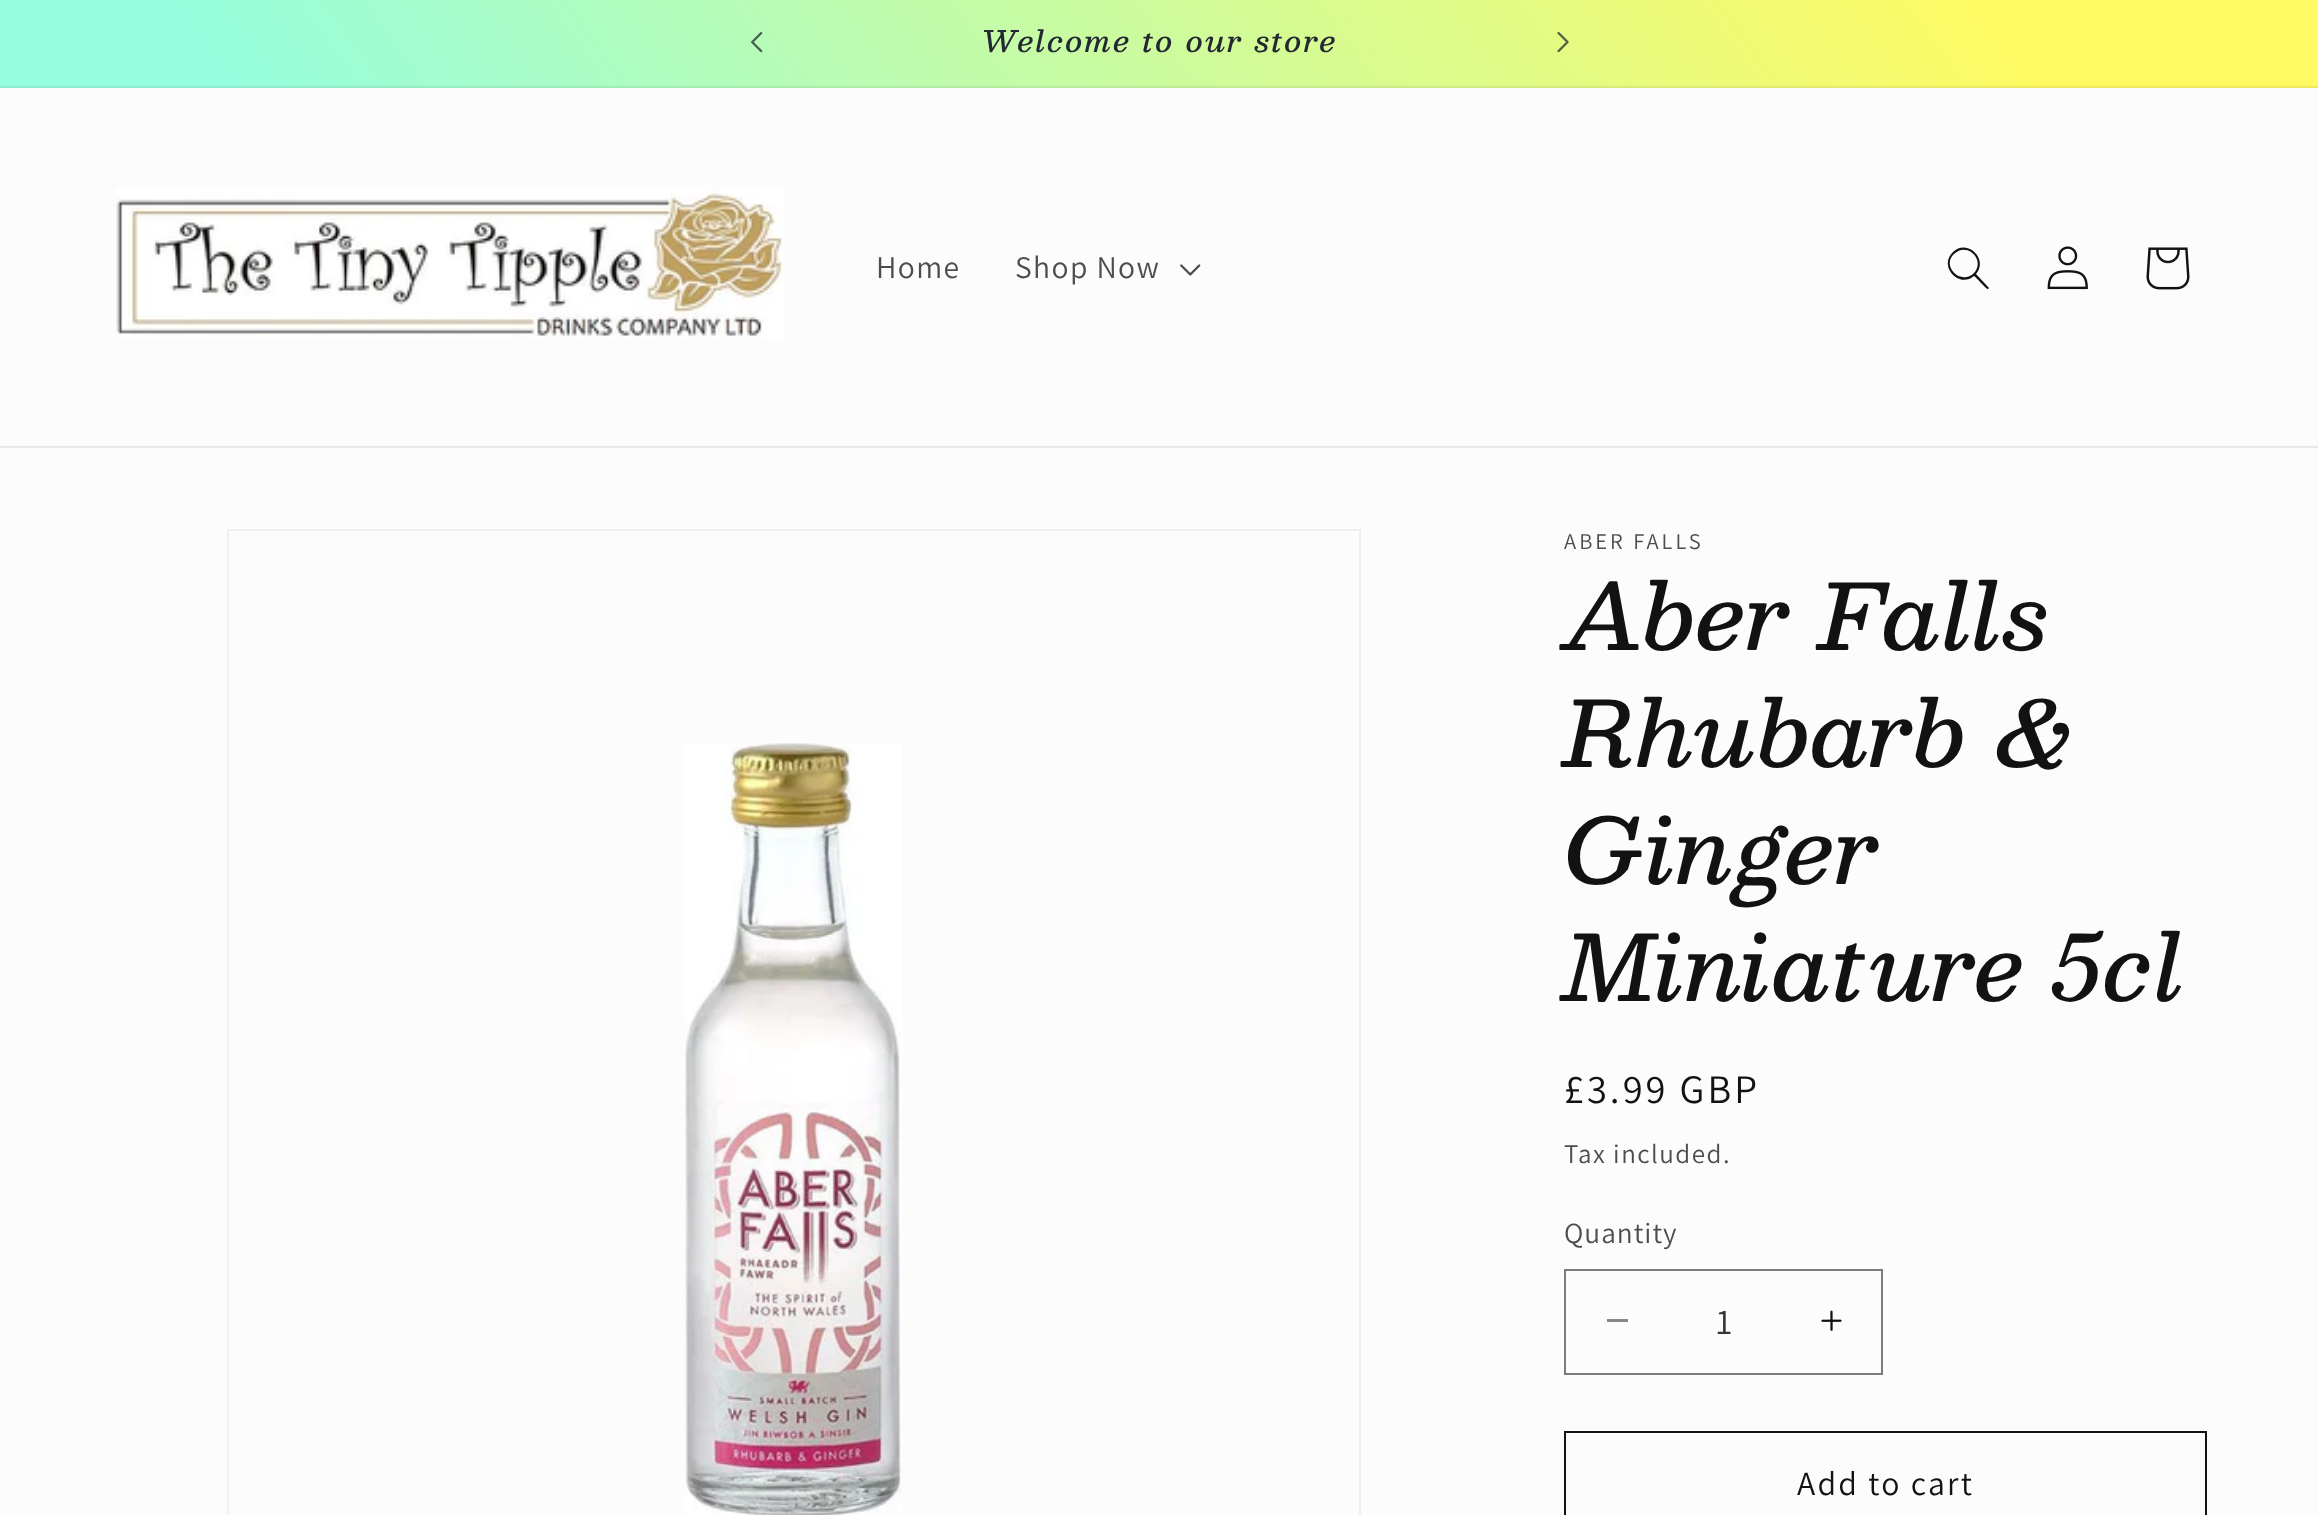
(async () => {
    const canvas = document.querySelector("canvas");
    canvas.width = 2318;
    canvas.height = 1515;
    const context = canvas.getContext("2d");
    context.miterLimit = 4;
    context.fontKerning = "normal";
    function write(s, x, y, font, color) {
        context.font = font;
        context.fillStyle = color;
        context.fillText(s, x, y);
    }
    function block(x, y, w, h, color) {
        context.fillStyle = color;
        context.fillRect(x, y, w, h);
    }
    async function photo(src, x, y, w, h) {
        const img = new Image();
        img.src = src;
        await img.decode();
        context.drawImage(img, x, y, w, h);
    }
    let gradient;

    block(0, 0, 2318, 1515, "rgb(252, 252, 252)");
    gradient = context.createLinearGradient(40, 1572, 2280, -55);
    gradient.addColorStop(0.37, "rgb(149, 253, 221)");
    gradient.addColorStop(0.9, "rgb(255, 250, 99)");
    context.fillStyle = gradient;
    context.fillRect(0, 0, 2318, 86);
    gradient = context.createLinearGradient(40, 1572, 2280, -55);
    gradient.addColorStop(0.37, "rgb(140, 236, 207)");
    gradient.addColorStop(0.9, "rgb(237, 233, 95)");
    context.fillStyle = gradient;
    context.fillRect(0, 86, 2318, 2);
    await photo("media/1.png", 751, 32, 12, 21);
    context.letterSpacing = "2.25px";
    write("Welcome to our store", 982, 52, "italic 500 29.25px Besley", "rgb(36, 40, 51)");
    await photo("media/2.png", 1557, 32, 12, 21);
    block(0, 446, 2318, 2, "rgb(233, 233, 233)");
    await photo("media/3.png", 116, 187, 668, 152);
    context.letterSpacing = "1.4px";
    write("Home", 876, 278, "31.5px Assistant", "rgb(77, 77, 77)");
    write("Shop Now", 1015, 278, "31.5px Assistant", "rgb(77, 77, 77)");
    await photo("media/4.png", 1180, 264, 21, 12);
    context.fillStyle = "rgb(18, 18, 18)";
    context.beginPath();
    context.moveTo(1974, 273);
    context.bezierCurveTo(1961, 286, 1941, 266, 1954, 254);
    context.bezierCurveTo(1967, 241, 1986, 260, 1974, 273);
    context.closePath();
    context.moveTo(1974, 276);
    context.bezierCurveTo(1959, 289, 1938, 266, 1953, 252);
    context.bezierCurveTo(1967, 238, 1989, 259, 1976, 274);
    context.lineTo(1989, 288);
    context.lineTo(1988, 289);
    context.bezierCurveTo(1987, 290, 1976, 277, 1974, 276);
    context.closePath();
    context.fill("evenodd");
    await photo("media/5.png", 2047, 246, 41, 44);
    await photo("media/6.png", 2146, 247, 44, 43);
    context.strokeStyle = "rgb(240, 240, 240)";
    context.lineWidth = 2;
    context.strokeRect(228, 530, 1132, 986);
    await photo("media/7.png", 685, 743, 217, 772);
    context.letterSpacing = "3px";
    write("ABER FALLS", 1564, 549, "22.5px Assistant", "rgb(77, 77, 77)");
    context.letterSpacing = "1.4px";
    write("Aber Falls", 1564, 650, "italic 500 90px Besley", "rgb(18, 18, 18)");
    write("Rhubarb &", 1564, 767, "italic 500 90px Besley", "rgb(18, 18, 18)");
    write("Ginger", 1564, 884, "italic 500 90px Besley", "rgb(18, 18, 18)");
    write("Miniature 5cl", 1564, 1001, "italic 500 90px Besley", "rgb(18, 18, 18)");
    context.letterSpacing = "3px";
    write("£3.99 GBP", 1564, 1103, "40.5px Assistant", "rgb(18, 18, 18)");
    context.letterSpacing = "1.5px";
    write("Tax included.", 1564, 1163, "27px Assistant", "rgb(77, 77, 77)");
    context.letterSpacing = "1px";
    write("Quantity", 1564, 1243, "29.25px Assistant", "rgb(77, 77, 77)");
    block(1607, 1319, 21, 3, "rgb(135, 135, 135)");
    await photo("media/8.png", 1821, 1310, 21, 21);
    context.strokeStyle = "rgb(123, 123, 123)";
    context.strokeRect(1565, 1270, 317, 104);
    context.letterSpacing = "0px";
    write("1", 1716, 1334, "36px Assistant", "rgb(53, 53, 53)");
    context.strokeStyle = "rgb(18, 18, 18)";
    context.strokeRect(1565, 1432, 641, 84);
    context.letterSpacing = "2.25px";
    write("Add to cart", 1797, 1495, "33.75px Assistant", "rgb(18, 18, 18)");
})();
